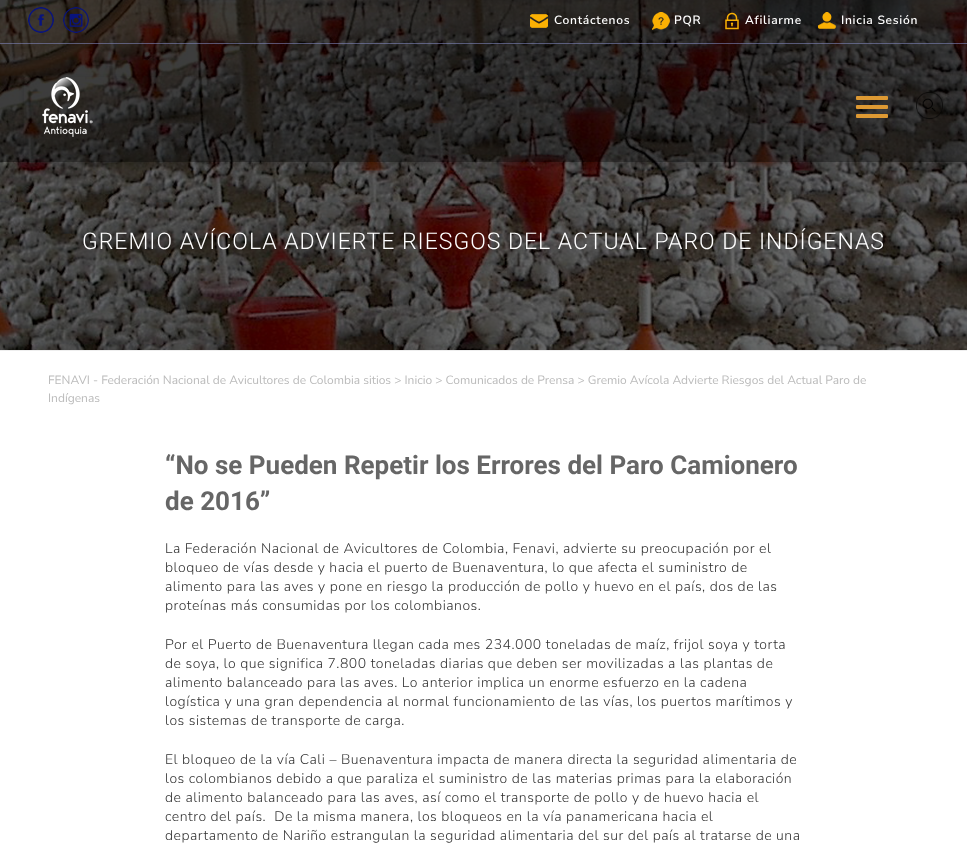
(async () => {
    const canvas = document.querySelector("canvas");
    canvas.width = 967;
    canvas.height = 848;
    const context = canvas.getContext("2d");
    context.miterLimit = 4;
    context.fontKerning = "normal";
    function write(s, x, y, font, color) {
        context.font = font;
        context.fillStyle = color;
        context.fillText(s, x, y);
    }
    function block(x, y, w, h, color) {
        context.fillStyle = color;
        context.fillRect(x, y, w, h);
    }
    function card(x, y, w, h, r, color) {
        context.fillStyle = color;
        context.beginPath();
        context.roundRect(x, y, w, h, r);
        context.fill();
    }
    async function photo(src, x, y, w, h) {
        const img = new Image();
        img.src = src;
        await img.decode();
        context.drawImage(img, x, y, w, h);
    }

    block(0, 0, 967, 848, "rgb(255, 255, 255)");
    await photo("media/9.png", 0, 0, 967, 350);
    block(0, 0, 967, 162, "rgba(0, 0, 0, 0.4)");
    block(0, 43, 967, 1, "rgba(125, 132, 183, 0.6)");
    await photo("media/1.png", 28, 7, 26, 26);
    await photo("media/2.png", 63, 7, 26, 26);
    await photo("media/3.png", 530, 14, 18, 14);
    context.letterSpacing = "0.75px";
    write("Contáctenos", 554, 24, "600 12px Nunito Sans", "rgb(255, 255, 255)");
    await photo("media/4.png", 652, 12, 18, 18);
    write("PQR", 674, 24, "600 12px Nunito Sans", "rgb(255, 255, 255)");
    await photo("media/5.png", 725, 12, 14, 18);
    write("Afiliarme", 745, 24, "600 12px Nunito Sans", "rgb(255, 255, 255)");
    await photo("media/6.png", 818, 12, 18, 17);
    write("Inicia Sesión", 841, 24, "600 12px Nunito Sans", "rgb(255, 255, 255)");
    context.save();
    context.beginPath();
    context.moveTo(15, 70);
    context.lineTo(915, 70);
    context.lineTo(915, 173);
    context.lineTo(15, 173);
    context.closePath();
    context.moveTo(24, 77);
    context.lineTo(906, 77);
    context.lineTo(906, 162);
    context.lineTo(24, 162);
    context.closePath();
    context.clip("evenodd");
    context.fillStyle = "rgba(0, 0, 0, 0.15)";
    context.filter = "blur(2.5px)";
    context.beginPath();
    context.rect(24, 79, 882, 85);
    context.fill();
    context.filter = "none";
    context.restore();
    await photo("media/7.png", 42, 77, 51, 60);
    card(856, 96, 32, 4, 1, "rgb(221, 153, 51)");
    card(856, 105, 32, 4, 1, "rgb(221, 153, 51)");
    card(856, 114, 32, 4, 1, "rgb(221, 153, 51)");
    await photo("media/8.png", 916, 92, 27, 27);
    block(0, 350, 967, 1, "rgb(238, 238, 238)");
    context.letterSpacing = "1px";
    write("GREMIO AVÍCOLA ADVIERTE RIESGOS DEL ACTUAL PARO DE INDÍGENAS", 82, 249, "300 23px Roboto", "rgb(255, 255, 255)");
    context.letterSpacing = "0px";
    write("FENAVI - Federación Nacional de Avicultores de Colombia sitios > Inicio > Comunicados de Prensa > Gremio Avícola Advierte Riesgos del Actual Paro de", 48, 384, "12px Nunito Sans", "rgb(187, 187, 187)");
    write("Indígenas", 48, 402, "12px Nunito Sans", "rgb(187, 187, 187)");
    write("“No se Pueden Repetir los Errores del Paro Camionero", 165, 474, "bold 26px Roboto", "rgb(102, 102, 102)");
    write("de 2016”", 165, 510, "bold 26px Roboto", "rgb(102, 102, 102)");
    context.letterSpacing = "0.5px";
    write("La Federación Nacional de Avicultores de Colombia, Fenavi, advierte su preocupación por el", 165, 553, "300 14px Nunito Sans", "rgb(51, 51, 51)");
    write("bloqueo de vías desde y hacia el puerto de Buenaventura, lo que afecta el suministro de", 165, 572, "300 14px Nunito Sans", "rgb(51, 51, 51)");
    write("alimento para las aves y pone en riesgo la producción de pollo y huevo en el país, dos de las", 165, 591, "300 14px Nunito Sans", "rgb(51, 51, 51)");
    write("proteínas más consumidas por los colombianos.", 165, 610, "300 14px Nunito Sans", "rgb(51, 51, 51)");
    write("Por el Puerto de Buenaventura llegan cada mes 234.000 toneladas de maíz, frijol soya y torta", 165, 649, "300 14px Nunito Sans", "rgb(51, 51, 51)");
    write("de soya, lo que significa 7.800 toneladas diarias que deben ser movilizadas a las plantas de", 165, 668, "300 14px Nunito Sans", "rgb(51, 51, 51)");
    write("alimento balanceado para las aves. Lo anterior implica un enorme esfuerzo en la cadena", 165, 687, "300 14px Nunito Sans", "rgb(51, 51, 51)");
    write("logística y una gran dependencia al normal funcionamiento de las vías, los puertos marítimos y", 165, 706, "300 14px Nunito Sans", "rgb(51, 51, 51)");
    write("los sistemas de transporte de carga.", 165, 725, "300 14px Nunito Sans", "rgb(51, 51, 51)");
    write("El bloqueo de la vía Cali – Buenaventura impacta de manera directa la seguridad alimentaria de", 165, 764, "300 14px Nunito Sans", "rgb(51, 51, 51)");
    write("los colombianos debido a que paraliza el suministro de las materias primas para la elaboración", 165, 783, "300 14px Nunito Sans", "rgb(51, 51, 51)");
    write("de alimento balanceado para las aves, así como el transporte de pollo y de huevo hacia el", 165, 802, "300 14px Nunito Sans", "rgb(51, 51, 51)");
    write("centro del país.  De la misma manera, los bloqueos en la vía panamericana hacia el", 165, 821, "300 14px Nunito Sans", "rgb(51, 51, 51)");
    write("departamento de Nariño estrangulan la seguridad alimentaria del sur del país al tratarse de una", 165, 840, "300 14px Nunito Sans", "rgb(51, 51, 51)");
})();
